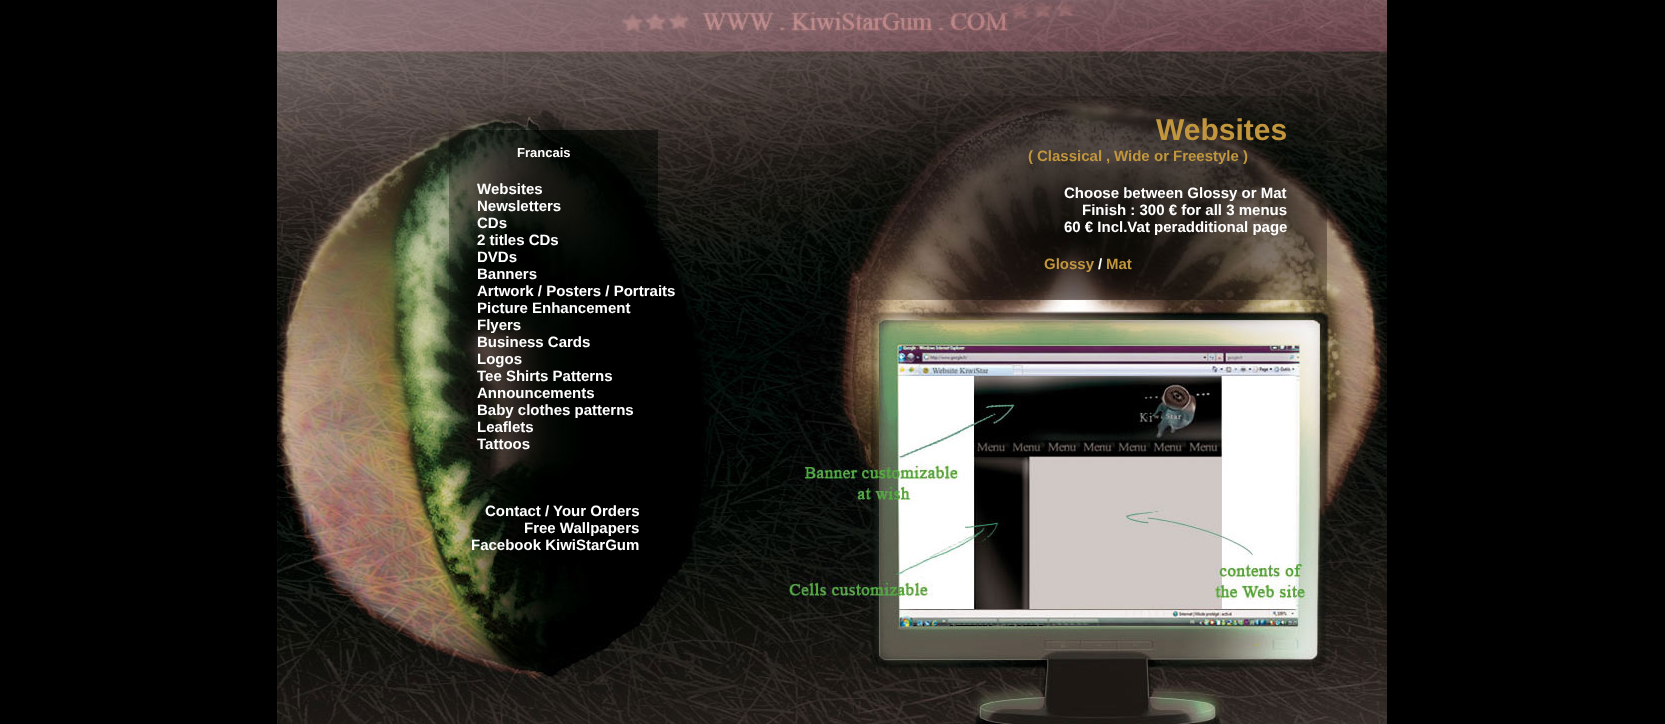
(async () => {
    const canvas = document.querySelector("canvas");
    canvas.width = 1665;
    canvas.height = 724;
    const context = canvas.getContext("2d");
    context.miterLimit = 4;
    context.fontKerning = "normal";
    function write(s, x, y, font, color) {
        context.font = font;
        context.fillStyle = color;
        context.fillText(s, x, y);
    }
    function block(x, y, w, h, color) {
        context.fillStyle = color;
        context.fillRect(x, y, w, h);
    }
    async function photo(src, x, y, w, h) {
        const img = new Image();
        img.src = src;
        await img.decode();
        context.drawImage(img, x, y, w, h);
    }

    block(0, 0, 1665, 724, "rgb(0, 0, 0)");
    await photo("media/1.png", 277, 0, 1110, 93);
    await photo("media/2.png", 277, 93, 512, 631);
    write("Francais", 517, 157, "bold 13px Liberation Sans", "rgb(255, 255, 255)");
    write("Websites", 477, 194, "bold 15px Liberation Sans", "rgb(255, 255, 255)");
    write("Newsletters", 477, 211, "bold 15px Liberation Sans", "rgb(255, 255, 255)");
    write("CDs", 477, 228, "bold 15px Liberation Sans", "rgb(255, 255, 255)");
    write("2 titles CDs", 477, 245, "bold 15px Liberation Sans", "rgb(255, 255, 255)");
    write("DVDs", 477, 262, "bold 15px Liberation Sans", "rgb(255, 255, 255)");
    write("Banners", 477, 279, "bold 15px Liberation Sans", "rgb(255, 255, 255)");
    write("Artwork / Posters / Portraits", 477, 296, "bold 15px Liberation Sans", "rgb(255, 255, 255)");
    write("Picture Enhancement", 477, 313, "bold 15px Liberation Sans", "rgb(255, 255, 255)");
    write("Flyers", 477, 330, "bold 15px Liberation Sans", "rgb(255, 255, 255)");
    write("Business Cards", 477, 347, "bold 15px Liberation Sans", "rgb(255, 255, 255)");
    write("Logos", 477, 364, "bold 15px Liberation Sans", "rgb(255, 255, 255)");
    write("Tee Shirts Patterns", 477, 381, "bold 15px Liberation Sans", "rgb(255, 255, 255)");
    write("Announcements", 477, 398, "bold 15px Liberation Sans", "rgb(255, 255, 255)");
    write("Baby clothes patterns", 477, 415, "bold 15px Liberation Sans", "rgb(255, 255, 255)");
    write("Leaflets", 477, 432, "bold 15px Liberation Sans", "rgb(255, 255, 255)");
    write("Tattoos", 477, 449, "bold 15px Liberation Sans", "rgb(255, 255, 255)");
    write("Contact / Your Orders", 485, 516, "bold 15px Liberation Sans", "rgb(255, 255, 255)");
    write("Free Wallpapers", 524, 533, "bold 15px Liberation Sans", "rgb(255, 255, 255)");
    write("Facebook KiwiStarGum", 471, 550, "bold 15px Liberation Sans", "rgb(255, 255, 255)");
    await photo("media/3.png", 789, 93, 598, 207);
    write("Websites", 1156, 140, "bold 30px Liberation Sans", "rgb(193, 150, 61)");
    write("(", 1028, 161, "bold 15px Liberation Sans", "rgb(193, 150, 61)");
    write("Classical", 1037, 161, "bold 15px Liberation Sans", "rgb(193, 150, 61)");
    write(",", 1106, 161, "bold 15px Liberation Sans", "rgb(193, 150, 61)");
    write("Wide", 1114, 161, "bold 15px Liberation Sans", "rgb(193, 150, 61)");
    write("or", 1154, 161, "bold 15px Liberation Sans", "rgb(193, 150, 61)");
    write("Freestyle", 1173, 161, "bold 15px Liberation Sans", "rgb(193, 150, 61)");
    write(")", 1243, 161, "bold 15px Liberation Sans", "rgb(193, 150, 61)");
    write("Choose between Glossy or Mat", 1064, 198, "bold 15px Liberation Sans", "rgb(255, 255, 255)");
    write("Finish : 300 € for all 3 menus", 1082, 215, "bold 15px Liberation Sans", "rgb(255, 255, 255)");
    write("60 € Incl.Vat peradditional page", 1064, 232, "bold 15px Liberation Sans", "rgb(255, 255, 255)");
    write("Glossy", 1044, 269, "bold 15px Liberation Sans", "rgb(193, 150, 61)");
    write("/", 1098, 269, "bold 15px Liberation Sans", "rgb(255, 255, 255)");
    write("Mat", 1106, 269, "bold 15px Liberation Sans", "rgb(193, 150, 61)");
    await photo("media/4.png", 789, 300, 598, 424);
})();
